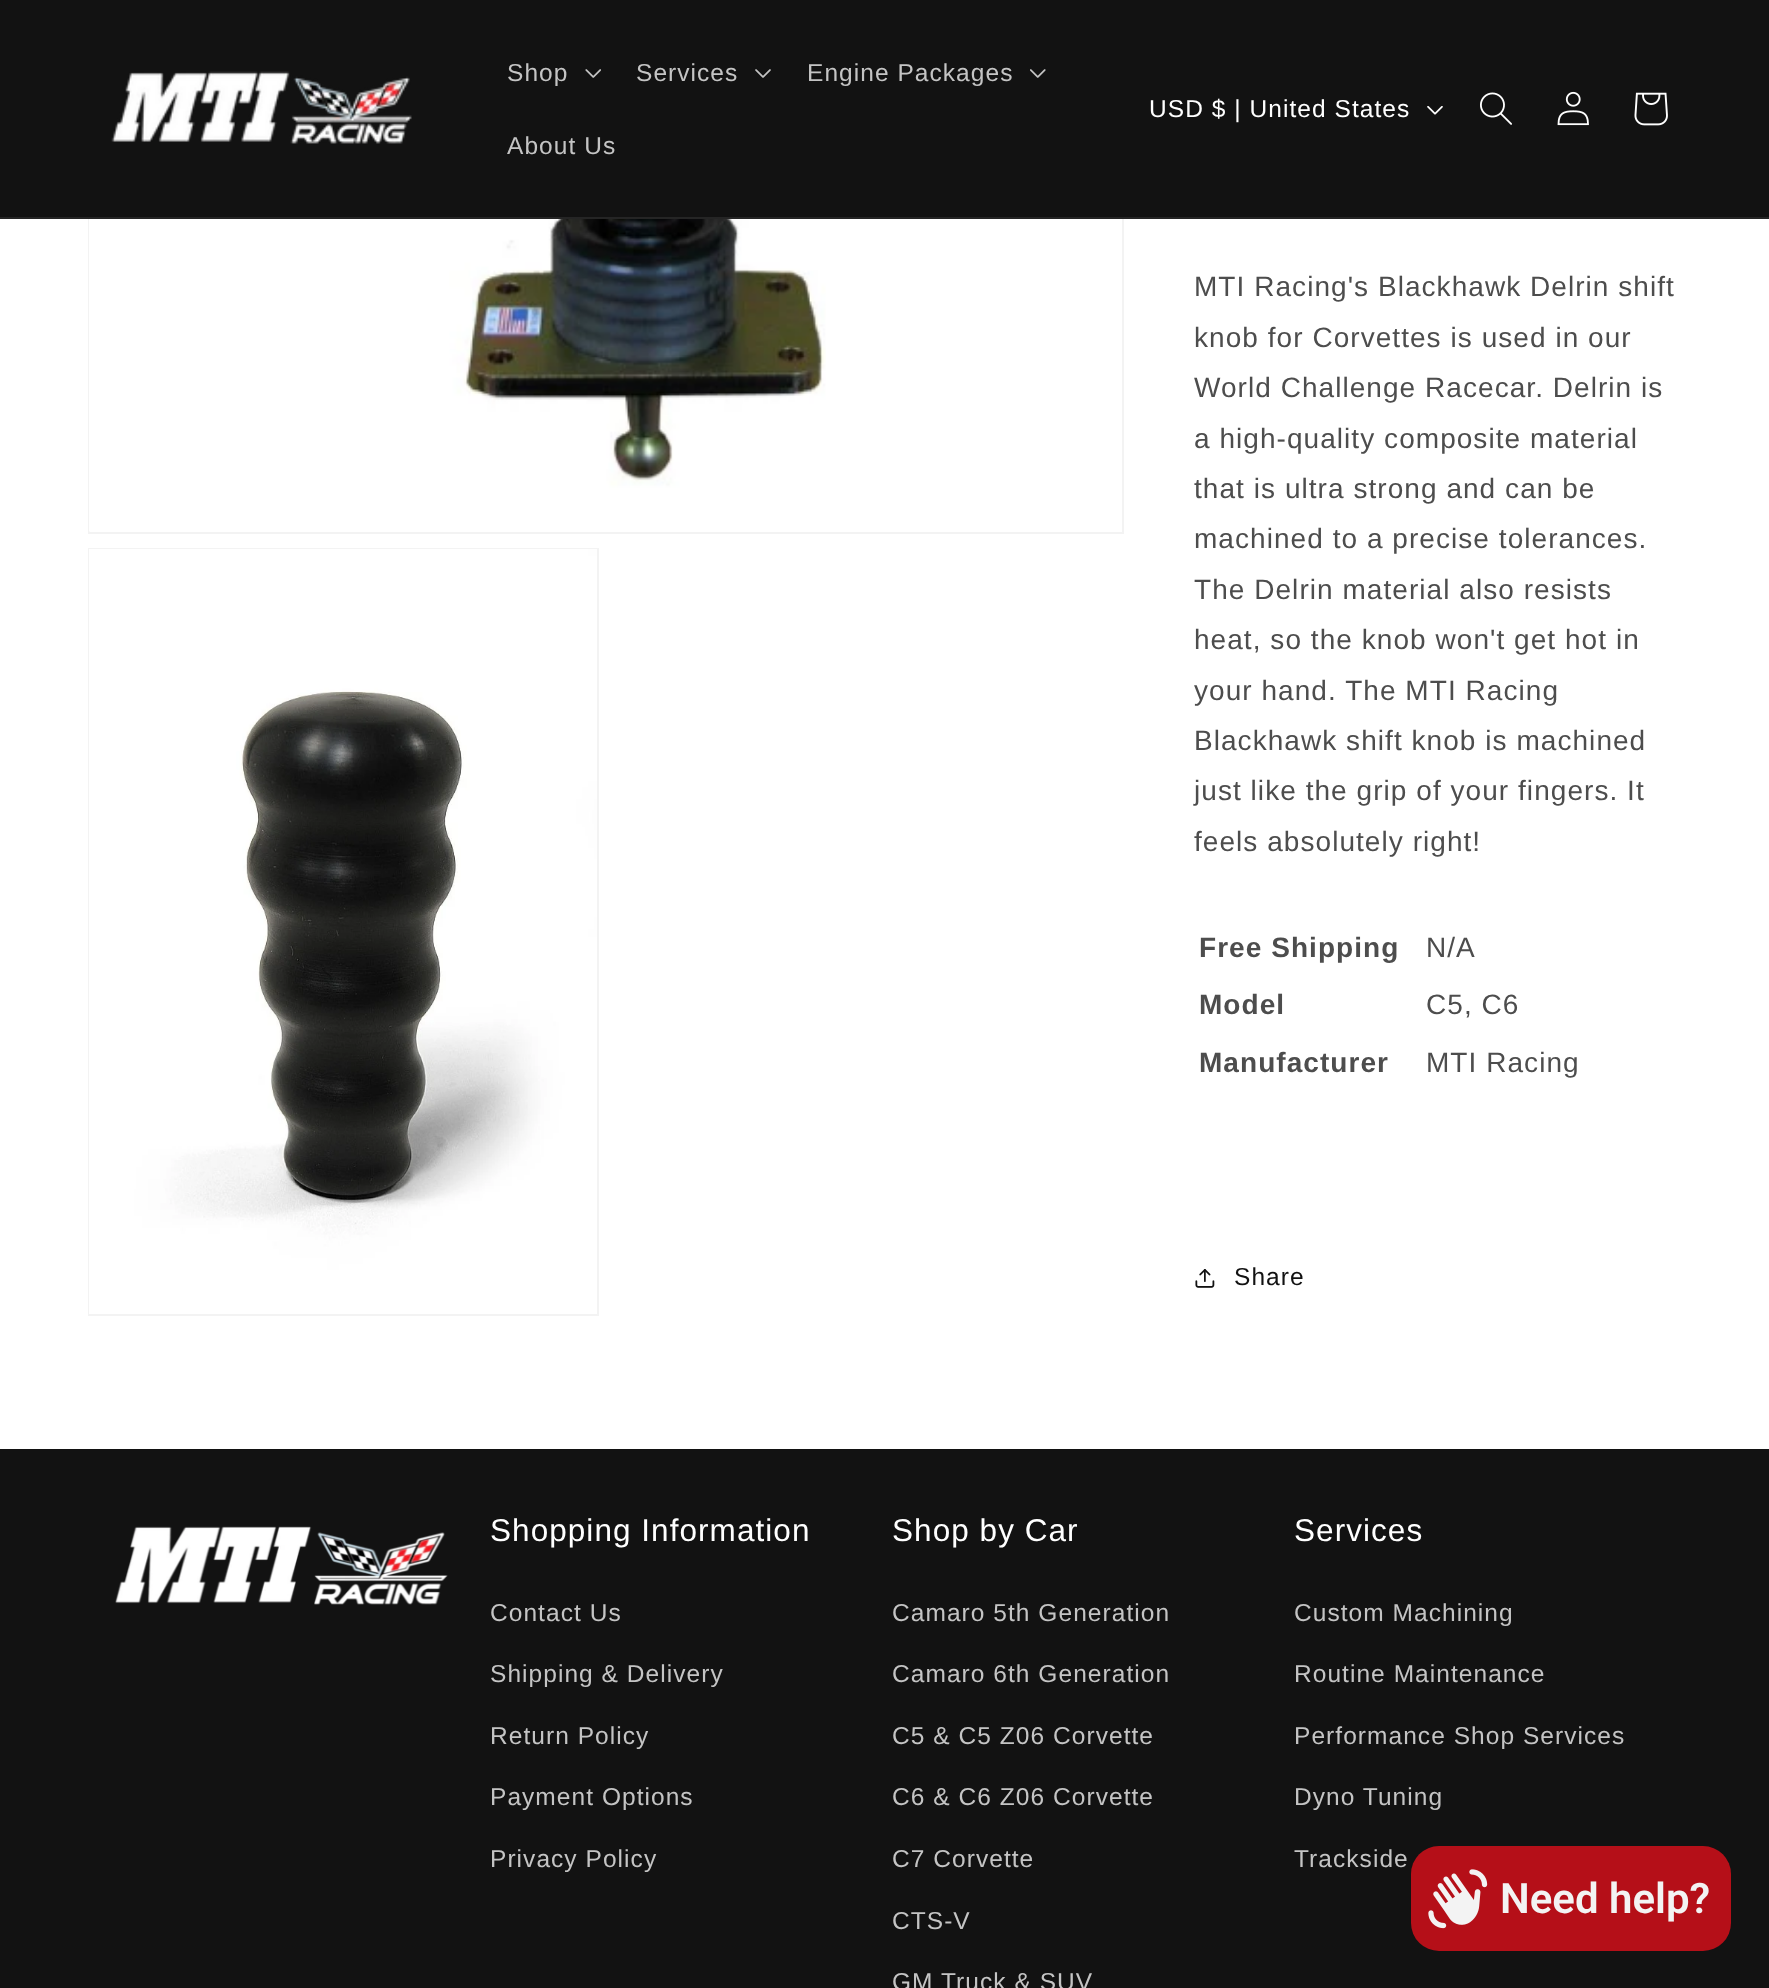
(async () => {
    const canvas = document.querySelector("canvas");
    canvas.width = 1769;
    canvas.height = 1988;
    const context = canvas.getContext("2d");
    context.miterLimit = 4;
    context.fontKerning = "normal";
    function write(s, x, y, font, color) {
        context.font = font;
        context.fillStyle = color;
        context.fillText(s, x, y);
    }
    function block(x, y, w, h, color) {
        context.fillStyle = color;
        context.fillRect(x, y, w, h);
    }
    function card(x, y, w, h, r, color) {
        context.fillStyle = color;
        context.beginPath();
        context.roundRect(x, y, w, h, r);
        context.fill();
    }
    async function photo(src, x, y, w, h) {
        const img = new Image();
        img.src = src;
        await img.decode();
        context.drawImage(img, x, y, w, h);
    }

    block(0, 0, 1769, 1988, "rgb(255, 255, 255)");
    context.strokeStyle = "rgb(243, 243, 243)";
    context.lineWidth = 2;
    context.strokeRect(89, -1, 1034, 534);
    block(0, 0, 1769, 217, "rgb(18, 18, 18)");
    block(0, 217, 1769, 2, "rgb(37, 37, 37)");
    await photo("media/1.png", 111, 71, 301, 73);
    context.letterSpacing = "1.05px";
    write("Shop", 507, 81, "24.5px Liberation Sans", "rgb(196, 196, 196)");
    await photo("media/2.png", 585, 69, 16, 9);
    write("Services", 636, 81, "24.5px Liberation Sans", "rgb(196, 196, 196)");
    await photo("media/3.png", 755, 69, 16, 9);
    write("Engine Packages", 807, 81, "24.5px Liberation Sans", "rgb(196, 196, 196)");
    await photo("media/4.png", 1030, 69, 16, 9);
    write("About Us", 507, 154, "24.5px Liberation Sans", "rgb(196, 196, 196)");
    write("USD $ | United States", 1149, 117, "24.5px Liberation Sans", "rgb(255, 255, 255)");
    await photo("media/5.png", 1427, 106, 16, 9);
    await photo("media/6.png", 1480, 92, 32, 33);
    await photo("media/7.png", 1557, 91, 32, 35);
    await photo("media/8.png", 1634, 92, 34, 34);
    await photo("media/9.png", 89, 219, 737, 313);
    context.strokeRect(89, 549, 509, 766);
    await photo("media/10.png", 89, 549, 508, 765);
    write("MTI Racing's Blackhawk Delrin shift", 1194, 296, "28px Liberation Sans", "rgb(77, 77, 77)");
    write("knob for Corvettes is used in our", 1194, 347, "28px Liberation Sans", "rgb(77, 77, 77)");
    write("World Challenge Racecar. Delrin is", 1194, 397, "28px Liberation Sans", "rgb(77, 77, 77)");
    write("a high-quality composite material", 1194, 448, "28px Liberation Sans", "rgb(77, 77, 77)");
    write("that is ultra strong and can be", 1194, 498, "28px Liberation Sans", "rgb(77, 77, 77)");
    write("machined to a precise tolerances.", 1194, 548, "28px Liberation Sans", "rgb(77, 77, 77)");
    write("The Delrin material also resists", 1194, 599, "28px Liberation Sans", "rgb(77, 77, 77)");
    write("heat, so the knob won't get hot in", 1194, 649, "28px Liberation Sans", "rgb(77, 77, 77)");
    write("your hand. The MTI Racing", 1194, 700, "28px Liberation Sans", "rgb(77, 77, 77)");
    write("Blackhawk shift knob is machined", 1194, 750, "28px Liberation Sans", "rgb(77, 77, 77)");
    write("just like the grip of your fingers. It", 1194, 800, "28px Liberation Sans", "rgb(77, 77, 77)");
    write("feels absolutely right!", 1194, 851, "28px Liberation Sans", "rgb(77, 77, 77)");
    write("Free Shipping", 1199, 957, "bold 28px Liberation Sans", "rgb(77, 77, 77)");
    write("N/A", 1426, 957, "28px Liberation Sans", "rgb(77, 77, 77)");
    write("Model", 1199, 1014, "bold 28px Liberation Sans", "rgb(77, 77, 77)");
    write("C5, C6", 1426, 1014, "28px Liberation Sans", "rgb(77, 77, 77)");
    write("Manufacturer", 1199, 1072, "bold 28px Liberation Sans", "rgb(77, 77, 77)");
    write("MTI Racing", 1426, 1072, "28px Liberation Sans", "rgb(77, 77, 77)");
    await photo("media/11.png", 1195, 1269, 20, 19);
    write("Share", 1234, 1285, "24.5px Liberation Sans", "rgb(18, 18, 18)");
    block(0, 1449, 1769, 539, "rgb(18, 18, 18)");
    await photo("media/12.png", 115, 1526, 333, 79);
    write("Shopping Information", 490, 1541, "31.5px Liberation Sans", "rgb(255, 255, 255)");
    write("Contact Us", 490, 1621, "24.5px Liberation Sans", "rgb(196, 196, 196)");
    write("Shipping & Delivery", 490, 1682, "24.5px Liberation Sans", "rgb(196, 196, 196)");
    write("Return Policy", 490, 1744, "24.5px Liberation Sans", "rgb(196, 196, 196)");
    write("Payment Options", 490, 1805, "24.5px Liberation Sans", "rgb(196, 196, 196)");
    write("Privacy Policy", 490, 1867, "24.5px Liberation Sans", "rgb(196, 196, 196)");
    write("Shop by Car", 892, 1541, "31.5px Liberation Sans", "rgb(255, 255, 255)");
    write("Camaro 5th Generation", 892, 1621, "24.5px Liberation Sans", "rgb(196, 196, 196)");
    write("Camaro 6th Generation", 892, 1682, "24.5px Liberation Sans", "rgb(196, 196, 196)");
    write("C5 & C5 Z06 Corvette", 892, 1744, "24.5px Liberation Sans", "rgb(196, 196, 196)");
    write("C6 & C6 Z06 Corvette", 892, 1805, "24.5px Liberation Sans", "rgb(196, 196, 196)");
    write("C7 Corvette", 892, 1867, "24.5px Liberation Sans", "rgb(196, 196, 196)");
    write("CTS-V", 892, 1929, "24.5px Liberation Sans", "rgb(196, 196, 196)");
    write("GM Truck & SUV", 892, 1990, "24.5px Liberation Sans", "rgb(196, 196, 196)");
    write("Services", 1294, 1541, "31.5px Liberation Sans", "rgb(255, 255, 255)");
    write("Custom Machining", 1294, 1621, "24.5px Liberation Sans", "rgb(196, 196, 196)");
    write("Routine Maintenance", 1294, 1682, "24.5px Liberation Sans", "rgb(196, 196, 196)");
    write("Performance Shop Services", 1294, 1744, "24.5px Liberation Sans", "rgb(196, 196, 196)");
    write("Dyno Tuning", 1294, 1805, "24.5px Liberation Sans", "rgb(196, 196, 196)");
    write("Trackside", 1294, 1867, "24.5px Liberation Sans", "rgb(196, 196, 196)");
    card(1411, 1846, 320, 105, 28, "rgb(181, 15, 24)");
    await photo("media/13.png", 1428, 1869, 60, 60);
    context.letterSpacing = "0px";
    write("Need help?", 1500, 1913, "600 42px Roboto", "rgb(243, 243, 243)");
})();
